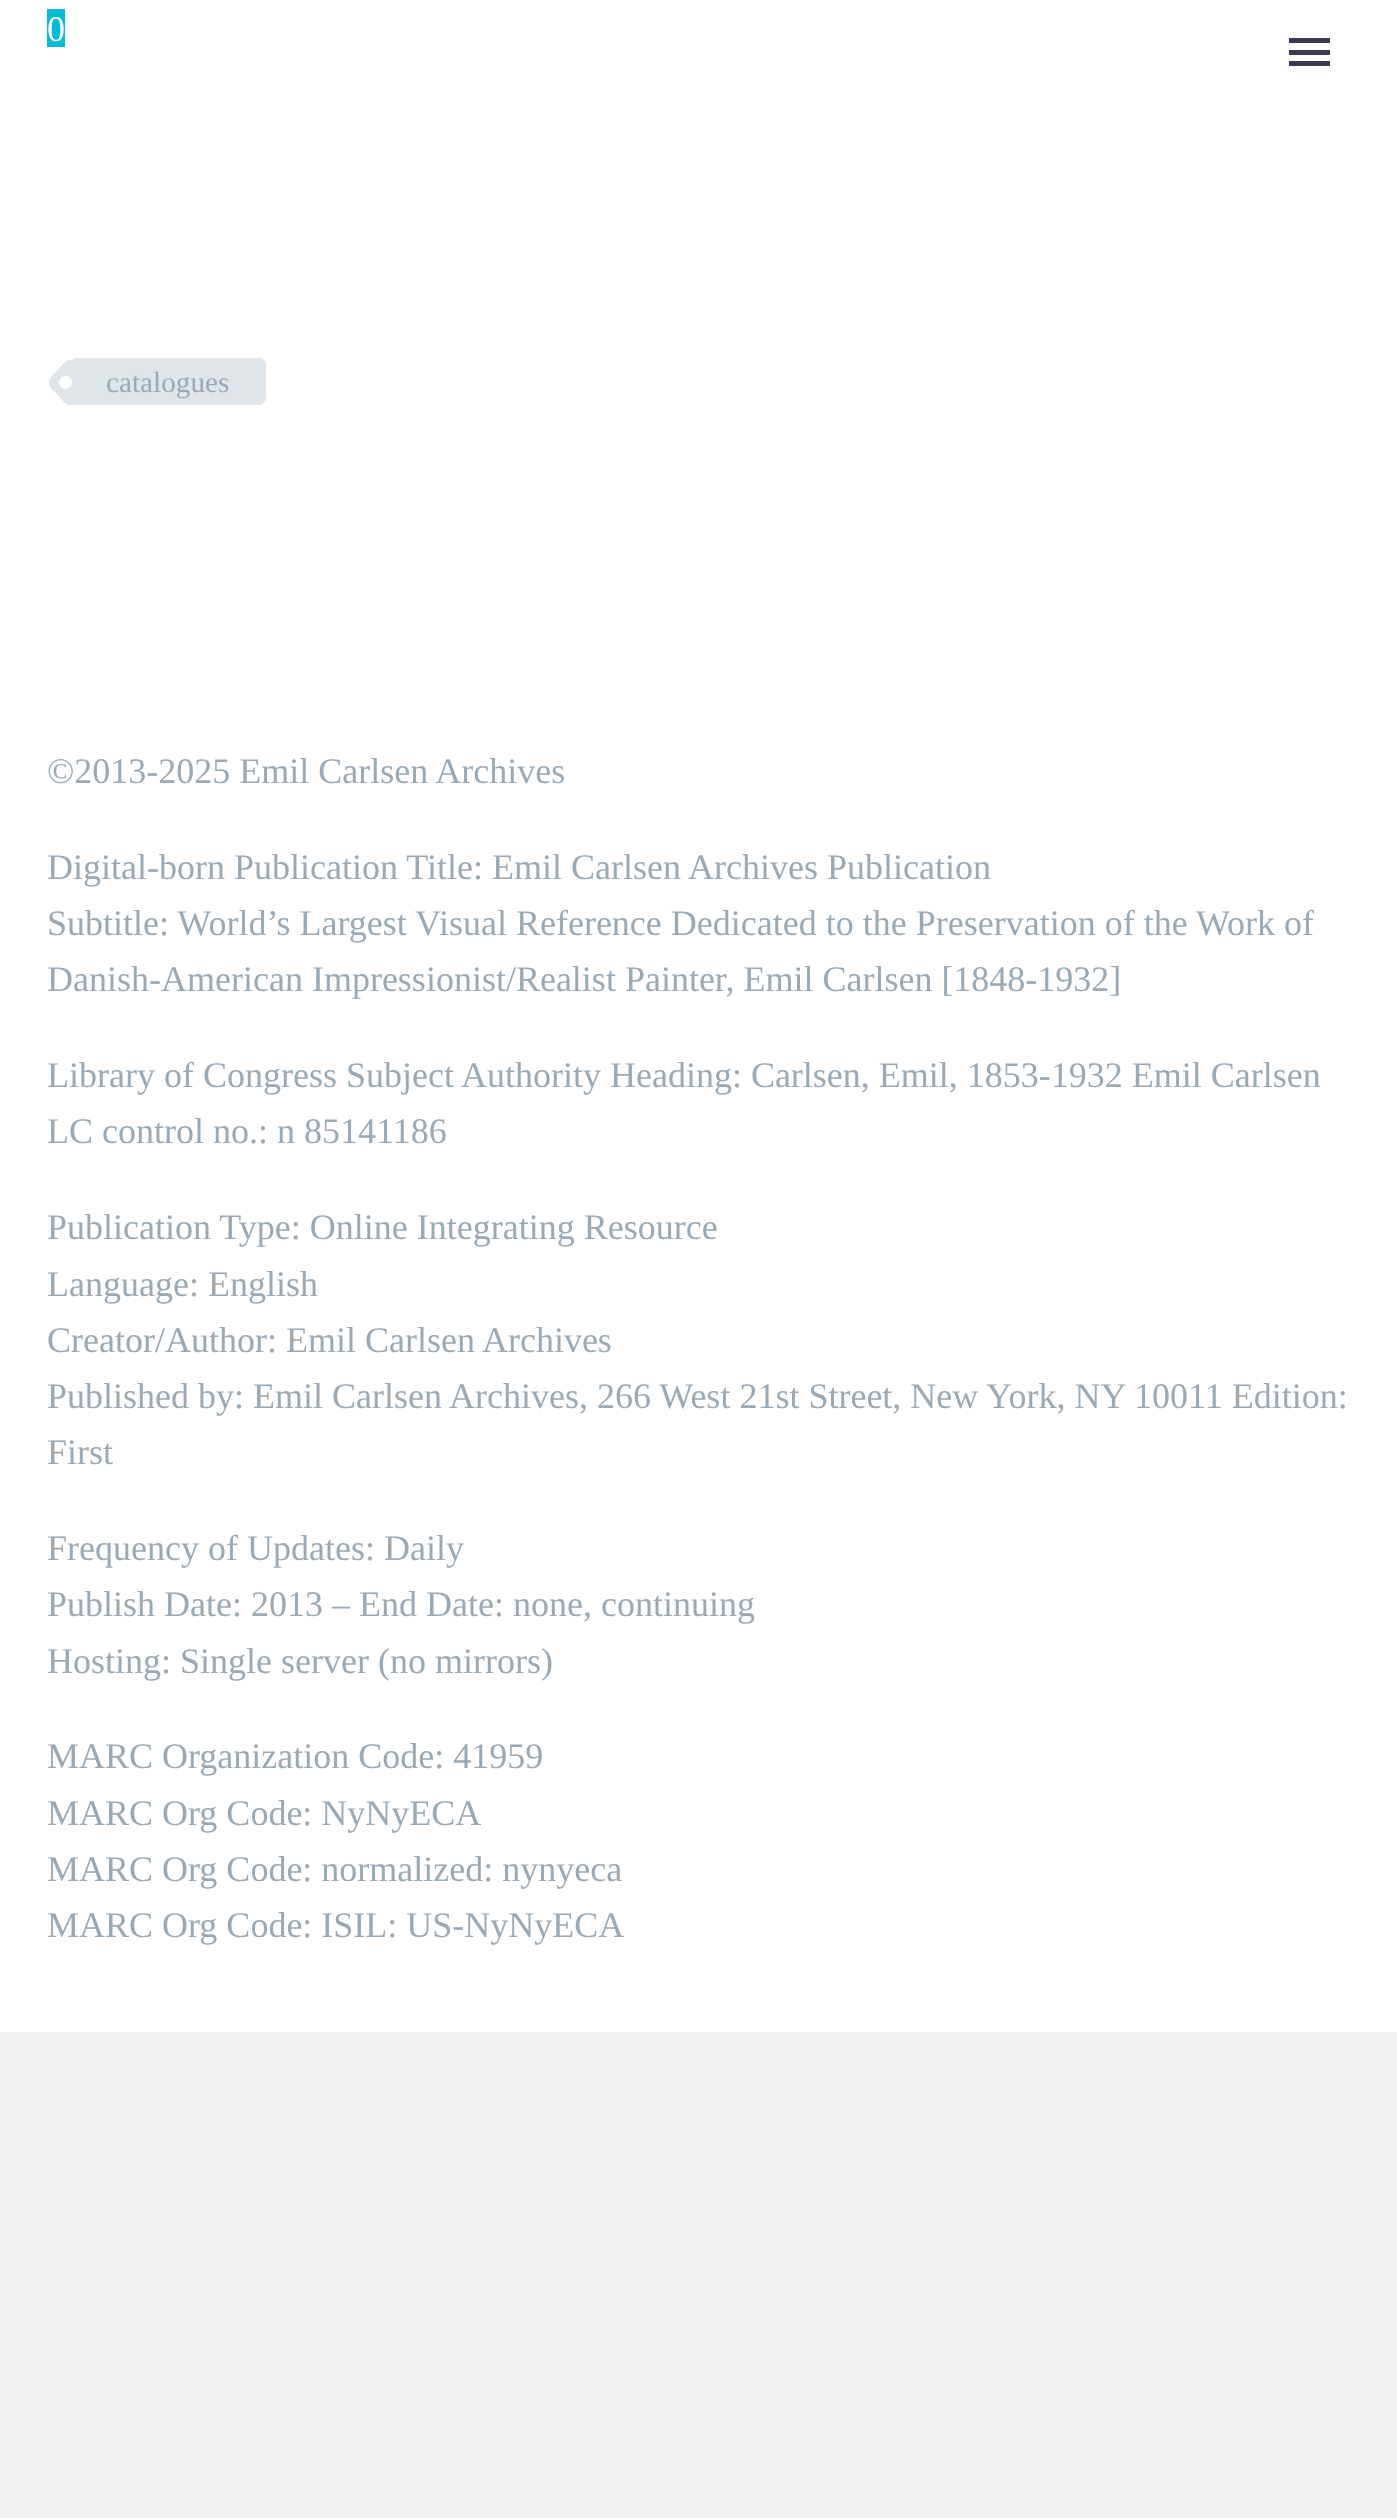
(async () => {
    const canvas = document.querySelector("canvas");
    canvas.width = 1397;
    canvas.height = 2518;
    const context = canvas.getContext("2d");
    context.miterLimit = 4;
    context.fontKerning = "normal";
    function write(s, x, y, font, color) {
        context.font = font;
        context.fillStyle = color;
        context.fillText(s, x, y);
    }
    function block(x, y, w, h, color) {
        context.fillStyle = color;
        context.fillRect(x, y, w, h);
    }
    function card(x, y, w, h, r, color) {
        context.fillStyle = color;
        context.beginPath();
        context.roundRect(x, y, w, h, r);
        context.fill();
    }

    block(0, 0, 1397, 2518, "rgb(240, 243, 242)");
    block(0, 0, 1397, 743, "rgb(255, 255, 255)");
    block(47, 9, 18, 38, "rgb(0, 188, 212)");
    write("0", 47, 41, "36px Liberation Serif", "rgb(255, 255, 255)");
    block(1289, 38, 41, 5, "rgb(60, 57, 80)");
    block(1289, 50, 41, 5, "rgb(60, 57, 80)");
    block(1289, 61, 41, 5, "rgb(60, 57, 80)");
    card(70, 358, 196, 47, 7, "rgb(223, 229, 232)");
    context.beginPath();
    context.moveTo(79, 362);
    context.lineTo(92, 376);
    context.bezierCurveTo(96, 379, 96, 386, 92, 389);
    context.lineTo(79, 403);
    context.bezierCurveTo(75, 406, 69, 406, 65, 403);
    context.lineTo(52, 389);
    context.bezierCurveTo(48, 386, 48, 379, 52, 376);
    context.lineTo(65, 362);
    context.bezierCurveTo(69, 359, 75, 359, 79, 362);
    context.closePath();
    context.fill();
    write("catalogues", 106, 392, "29.25px Liberation Serif", "rgb(153, 169, 181)");
    context.fillStyle = "rgb(255, 255, 255)";
    context.beginPath();
    context.arc(65.5, 382.5, 6.5, 0, Math.PI * 2);
    context.fill();
    block(0, 743, 1397, 1289, "rgb(255, 255, 255)");
    write("©2013-2025 Emil Carlsen Archives", 47, 783, "36px Liberation Serif", "rgb(153, 169, 181)");
    write("Digital-born Publication Title: Emil Carlsen Archives Publication", 47, 879, "36px Liberation Serif", "rgb(153, 169, 181)");
    write("Subtitle: World’s Largest Visual Reference Dedicated to the Preservation of the Work of", 47, 935, "36px Liberation Serif", "rgb(153, 169, 181)");
    write("Danish-American Impressionist/Realist Painter, Emil Carlsen [1848-1932]", 47, 991, "36px Liberation Serif", "rgb(153, 169, 181)");
    write("Library of Congress Subject Authority Heading: Carlsen, Emil, 1853-1932 Emil Carlsen", 47, 1087, "36px Liberation Serif", "rgb(153, 169, 181)");
    write("LC control no.: n 85141186", 47, 1143, "36px Liberation Serif", "rgb(153, 169, 181)");
    write("Publication Type: Online Integrating Resource", 47, 1239, "36px Liberation Serif", "rgb(153, 169, 181)");
    write("Language: English", 47, 1296, "36px Liberation Serif", "rgb(153, 169, 181)");
    write("Creator/Author: Emil Carlsen Archives", 47, 1352, "36px Liberation Serif", "rgb(153, 169, 181)");
    write("Published by: Emil Carlsen Archives, 266 West 21st Street, New York, NY 10011 Edition:", 47, 1408, "36px Liberation Serif", "rgb(153, 169, 181)");
    write("First", 47, 1464, "36px Liberation Serif", "rgb(153, 169, 181)");
    write("Frequency of Updates: Daily", 47, 1560, "36px Liberation Serif", "rgb(153, 169, 181)");
    write("Publish Date: 2013 – End Date: none, continuing", 47, 1616, "36px Liberation Serif", "rgb(153, 169, 181)");
    write("Hosting: Single server (no mirrors)", 47, 1673, "36px Liberation Serif", "rgb(153, 169, 181)");
    write("MARC Organization Code: 41959", 47, 1768, "36px Liberation Serif", "rgb(153, 169, 181)");
    write("MARC Org Code: NyNyECA", 47, 1825, "36px Liberation Serif", "rgb(153, 169, 181)");
    write("MARC Org Code: normalized: nynyeca", 47, 1881, "36px Liberation Serif", "rgb(153, 169, 181)");
    write("MARC Org Code: ISIL: US-NyNyECA", 47, 1937, "36px Liberation Serif", "rgb(153, 169, 181)");
})();
